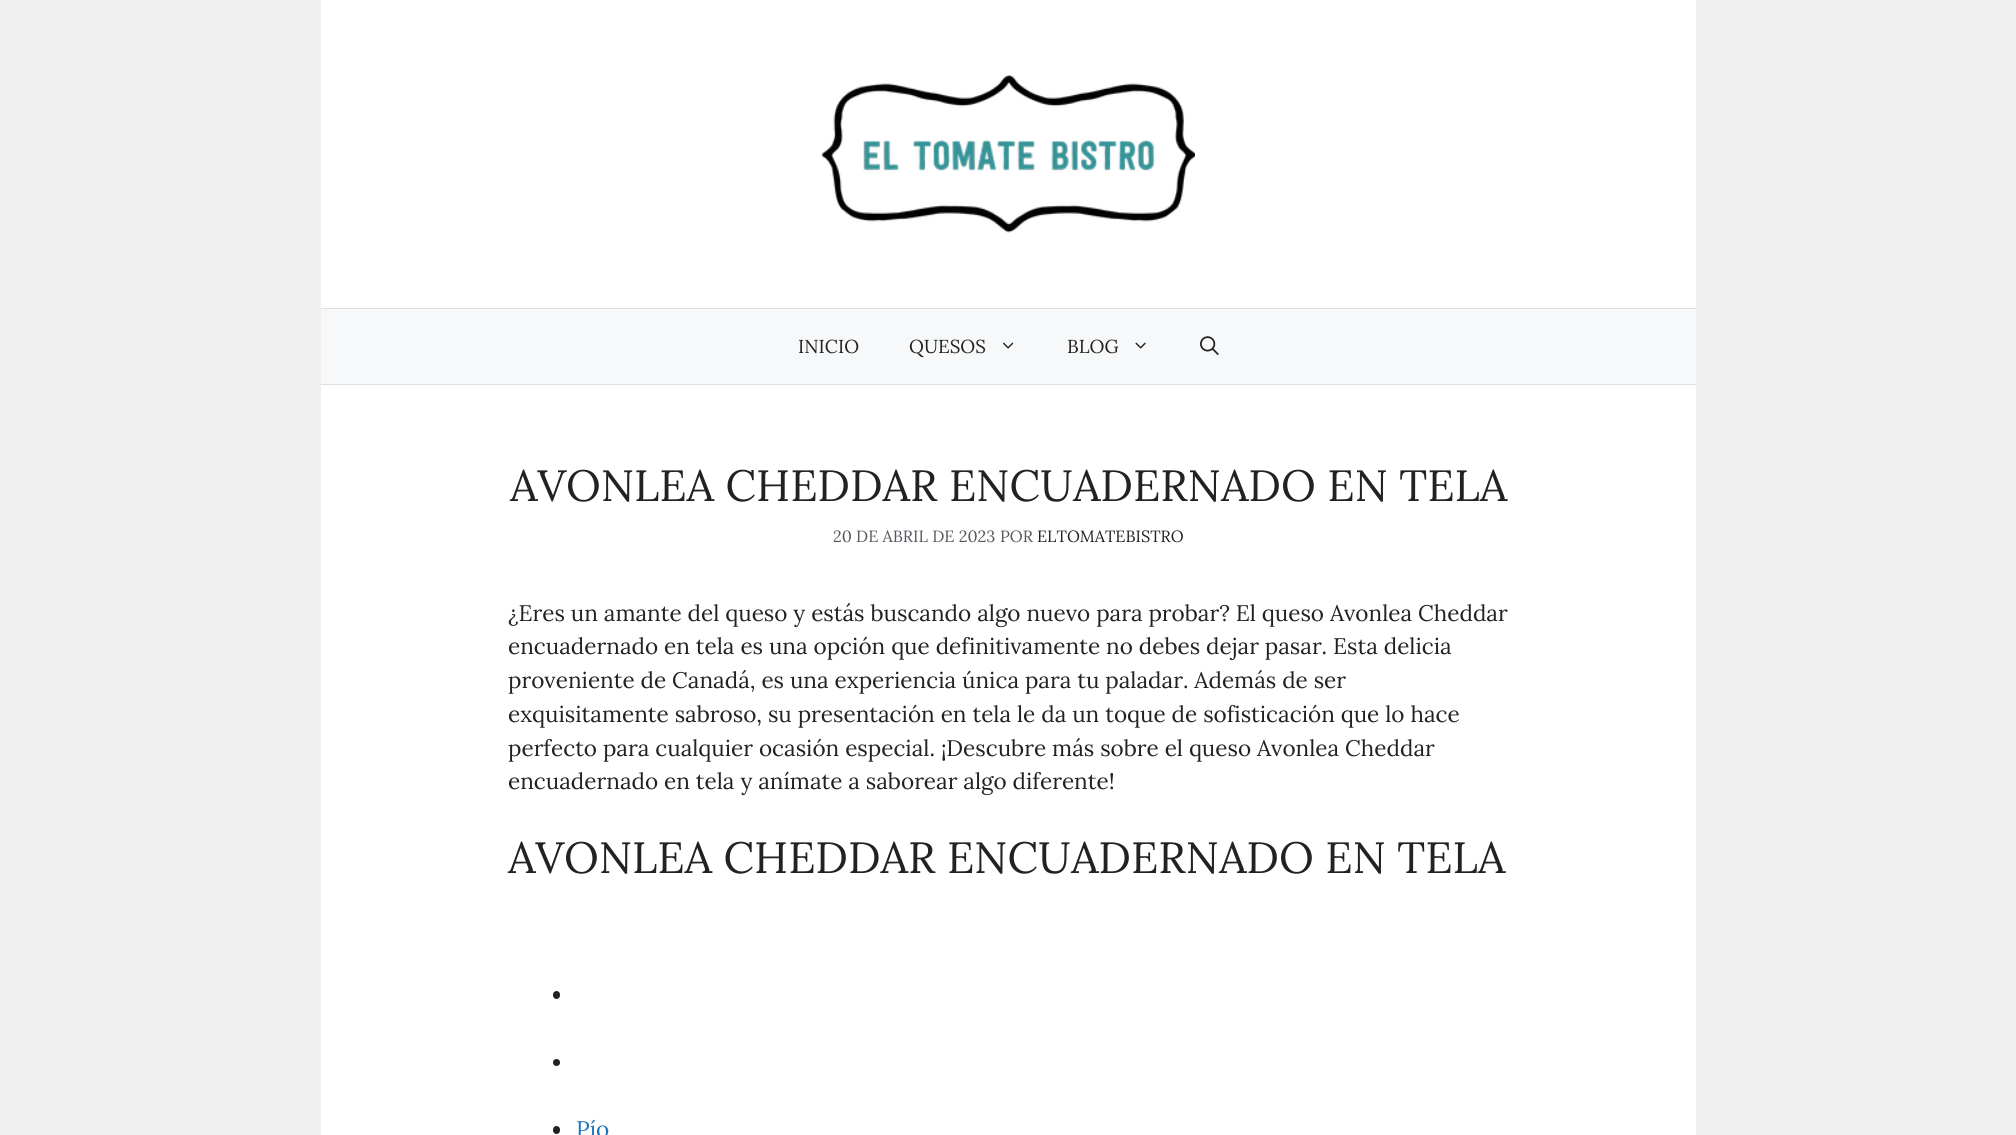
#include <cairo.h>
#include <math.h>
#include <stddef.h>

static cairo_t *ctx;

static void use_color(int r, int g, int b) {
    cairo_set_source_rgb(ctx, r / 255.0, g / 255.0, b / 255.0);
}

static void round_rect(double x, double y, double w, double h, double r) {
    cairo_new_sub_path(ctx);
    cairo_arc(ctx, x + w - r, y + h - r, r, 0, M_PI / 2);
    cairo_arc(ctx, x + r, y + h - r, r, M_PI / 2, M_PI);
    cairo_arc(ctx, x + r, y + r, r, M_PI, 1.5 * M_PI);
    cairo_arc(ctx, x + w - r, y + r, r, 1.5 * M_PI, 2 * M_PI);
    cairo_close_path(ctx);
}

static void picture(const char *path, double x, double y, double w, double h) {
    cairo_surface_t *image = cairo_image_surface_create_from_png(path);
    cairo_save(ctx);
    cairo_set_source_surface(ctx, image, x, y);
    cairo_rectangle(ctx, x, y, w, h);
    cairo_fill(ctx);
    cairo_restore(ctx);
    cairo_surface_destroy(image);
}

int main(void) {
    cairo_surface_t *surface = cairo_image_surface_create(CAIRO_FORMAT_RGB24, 2016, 1135);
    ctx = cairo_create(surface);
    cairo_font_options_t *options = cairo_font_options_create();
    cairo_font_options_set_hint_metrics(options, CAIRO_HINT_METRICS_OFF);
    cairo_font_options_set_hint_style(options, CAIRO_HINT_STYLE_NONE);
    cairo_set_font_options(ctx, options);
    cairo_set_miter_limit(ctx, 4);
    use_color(240, 240, 240);
    cairo_paint(ctx);
    use_color(255, 255, 255);
    cairo_rectangle(ctx, 321, 0, 1375, 308);
    cairo_fill(ctx);
    picture("img1.png", 821, 75, 374, 158);
    use_color(247, 248, 249);
    cairo_rectangle(ctx, 321, 309, 1375, 75);
    cairo_fill(ctx);
    use_color(222, 223, 224);
    cairo_rectangle(ctx, 321, 308, 1375, 1);
    cairo_fill(ctx);
    cairo_rectangle(ctx, 321, 384, 1375, 1);
    cairo_fill(ctx);
    cairo_select_font_face(ctx, "Lora", CAIRO_FONT_SLANT_NORMAL, CAIRO_FONT_WEIGHT_NORMAL);
    cairo_set_font_size(ctx, 18.75);
    use_color(34, 34, 34);
    cairo_move_to(ctx, 798, 353);
    cairo_show_text(ctx, "INICIO");
    cairo_move_to(ctx, 909, 353);
    cairo_show_text(ctx, "QUESOS");
    picture("img2.png", 1003, 342, 11, 7);
    cairo_move_to(ctx, 1067, 353);
    cairo_show_text(ctx, "BLOG");
    picture("img3.png", 1135, 342, 11, 7);
    picture("img4.png", 1200, 336, 19, 19);
    use_color(255, 255, 255);
    cairo_rectangle(ctx, 321, 385, 1375, 750);
    cairo_fill(ctx);
    cairo_set_font_size(ctx, 43.75);
    use_color(34, 34, 34);
    cairo_move_to(ctx, 510, 501);
    cairo_show_text(ctx, "AVONLEA CHEDDAR ENCUADERNADO EN TELA");
    cairo_set_font_size(ctx, 16.25);
    use_color(87, 87, 96);
    cairo_move_to(ctx, 833, 542);
    cairo_show_text(ctx, "20 DE ABRIL DE 2023");
    cairo_move_to(ctx, 1000, 542);
    cairo_show_text(ctx, "POR");
    use_color(34, 34, 34);
    cairo_move_to(ctx, 1037, 542);
    cairo_show_text(ctx, "ELTOMATEBISTRO");
    cairo_set_font_size(ctx, 22.5);
    cairo_move_to(ctx, 508, 621);
    cairo_show_text(ctx, "¿Eres un amante del queso y estás buscando algo nuevo para probar? El queso Avonlea Cheddar");
    cairo_move_to(ctx, 508, 654);
    cairo_show_text(ctx, "encuadernado en tela es una opción que definitivamente no debes dejar pasar. Esta delicia");
    cairo_move_to(ctx, 508, 688);
    cairo_show_text(ctx, "proveniente de Canadá, es una experiencia única para tu paladar. Además de ser");
    cairo_move_to(ctx, 508, 722);
    cairo_show_text(ctx, "exquisitamente sabroso, su presentación en tela le da un toque de sofisticación que lo hace");
    cairo_move_to(ctx, 508, 756);
    cairo_show_text(ctx, "perfecto para cualquier ocasión especial. ¡Descubre más sobre el queso Avonlea Cheddar");
    cairo_move_to(ctx, 508, 789);
    cairo_show_text(ctx, "encuadernado en tela y anímate a saborear algo diferente!");
    cairo_set_font_size(ctx, 43.75);
    cairo_move_to(ctx, 508, 873);
    cairo_show_text(ctx, "AVONLEA CHEDDAR ENCUADERNADO EN TELA");
    round_rect(553, 991, 7, 8, 3.5);
    cairo_fill(ctx);
    cairo_arc(ctx, 556.5, 1062.5, 3.5, 0, 2 * M_PI);
    cairo_fill(ctx);
    round_rect(553, 1126, 7, 8, 3.5);
    cairo_fill(ctx);
    cairo_set_font_size(ctx, 22.5);
    use_color(30, 115, 190);
    cairo_move_to(ctx, 576, 1137);
    cairo_show_text(ctx, "Pío");
    cairo_surface_write_to_png(surface, "result.png");
    cairo_font_options_destroy(options);
    cairo_destroy(ctx);
    cairo_surface_destroy(surface);
    return 0;
}
